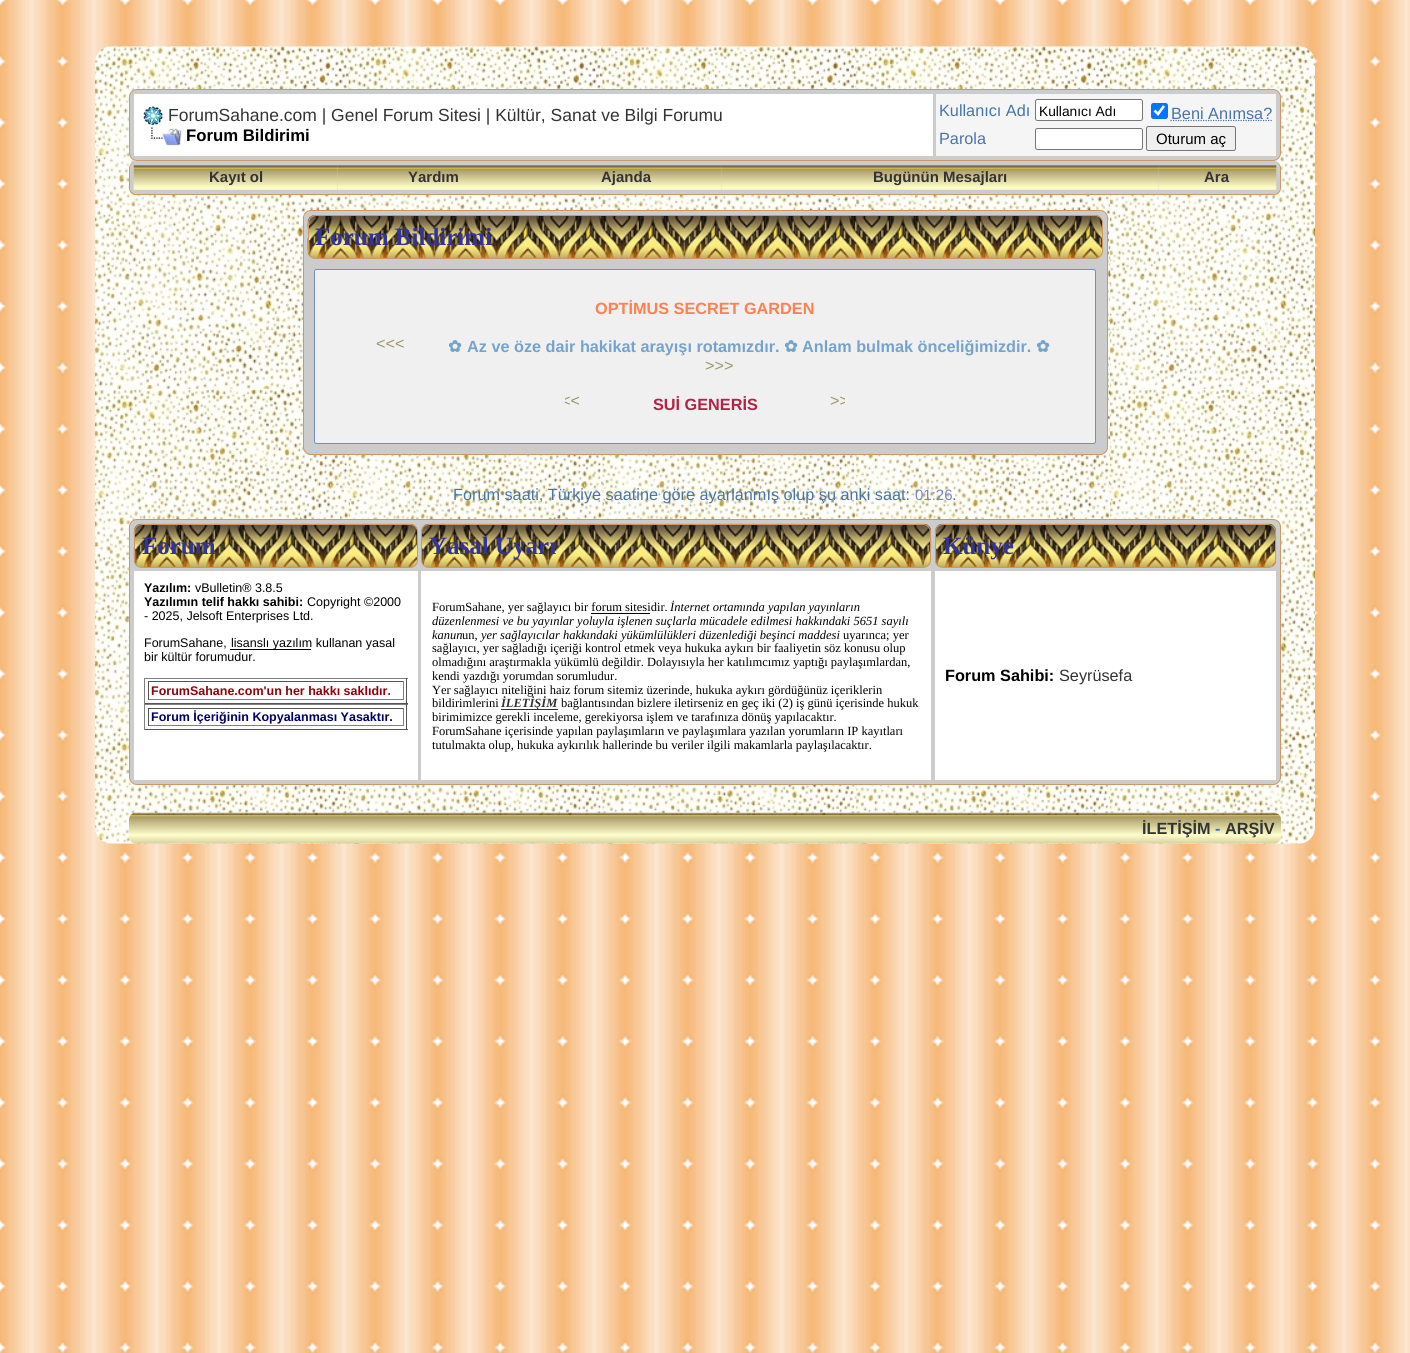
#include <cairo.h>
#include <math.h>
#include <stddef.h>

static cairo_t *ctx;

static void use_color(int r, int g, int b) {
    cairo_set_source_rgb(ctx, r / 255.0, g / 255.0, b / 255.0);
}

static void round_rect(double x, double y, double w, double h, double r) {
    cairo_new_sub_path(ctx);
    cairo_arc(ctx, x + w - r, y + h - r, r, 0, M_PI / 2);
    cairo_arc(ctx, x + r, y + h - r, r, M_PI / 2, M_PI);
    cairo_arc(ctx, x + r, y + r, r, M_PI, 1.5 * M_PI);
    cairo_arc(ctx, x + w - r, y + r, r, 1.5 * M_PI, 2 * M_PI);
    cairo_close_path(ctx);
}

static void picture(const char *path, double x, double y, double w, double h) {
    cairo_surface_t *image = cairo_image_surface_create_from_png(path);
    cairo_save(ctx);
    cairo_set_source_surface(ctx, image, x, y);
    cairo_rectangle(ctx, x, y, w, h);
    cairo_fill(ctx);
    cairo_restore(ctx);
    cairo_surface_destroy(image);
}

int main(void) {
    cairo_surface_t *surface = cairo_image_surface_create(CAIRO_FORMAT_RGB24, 1410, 1353);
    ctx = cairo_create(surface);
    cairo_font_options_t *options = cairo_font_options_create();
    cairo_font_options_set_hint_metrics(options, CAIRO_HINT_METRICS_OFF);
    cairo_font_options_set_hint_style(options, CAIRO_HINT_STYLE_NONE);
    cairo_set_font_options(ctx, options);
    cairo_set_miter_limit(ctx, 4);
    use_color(255, 255, 255);
    cairo_paint(ctx);
    picture("img1.png", 0, 0, 1410, 1353);
    picture("img2.png", 95, 46, 1220, 798);
    use_color(204, 204, 204);
    round_rect(129.5, 89.5, 1151, 71, 7.5);
    cairo_fill_preserve(ctx);
    use_color(204, 153, 102);
    cairo_set_line_width(ctx, 1);
    cairo_stroke(ctx);
    use_color(255, 255, 255);
    cairo_rectangle(ctx, 134, 94, 799, 62);
    cairo_fill(ctx);
    picture("img3.png", 143, 106, 20, 19);
    cairo_select_font_face(ctx, "Liberation Sans", CAIRO_FONT_SLANT_NORMAL, CAIRO_FONT_WEIGHT_NORMAL);
    cairo_set_font_size(ctx, 17.5);
    use_color(51, 51, 51);
    cairo_move_to(ctx, 168, 121);
    cairo_show_text(ctx, "ForumSahane.com | Genel Forum Sitesi | Kültür, Sanat ve Bilgi Forumu");
    picture("img4.png", 151, 127, 31, 19);
    cairo_select_font_face(ctx, "Liberation Sans", CAIRO_FONT_SLANT_NORMAL, CAIRO_FONT_WEIGHT_BOLD);
    cairo_set_font_size(ctx, 16.75);
    use_color(0, 0, 0);
    cairo_move_to(ctx, 186, 141);
    cairo_show_text(ctx, "Forum Bildirimi");
    use_color(245, 245, 245);
    cairo_rectangle(ctx, 936, 94, 340, 62);
    cairo_fill(ctx);
    cairo_select_font_face(ctx, "Liberation Sans", CAIRO_FONT_SLANT_NORMAL, CAIRO_FONT_WEIGHT_NORMAL);
    cairo_set_font_size(ctx, 16.25);
    use_color(72, 116, 172);
    cairo_move_to(ctx, 939, 116);
    cairo_show_text(ctx, "Kullanıcı Adı");
    use_color(255, 255, 255);
    round_rect(1035.5, 99.5, 107, 21, 2);
    cairo_fill_preserve(ctx);
    use_color(118, 118, 118);
    cairo_stroke(ctx);
    cairo_set_font_size(ctx, 13.75);
    use_color(0, 0, 0);
    cairo_move_to(ctx, 1039, 116);
    cairo_show_text(ctx, "Kullanıcı Adı");
    use_color(0, 117, 255);
    round_rect(1151, 103, 17, 16, 2.5);
    cairo_fill(ctx);
    cairo_new_path(ctx);
    cairo_move_to(ctx, 1154.5, 110.5);
    cairo_line_to(ctx, 1158, 114);
    cairo_line_to(ctx, 1164, 106);
    use_color(255, 255, 255);
    cairo_set_line_width(ctx, 2.6);
    cairo_stroke(ctx);
    cairo_new_path(ctx);
    cairo_move_to(ctx, 1170.5, 120.5);
    cairo_line_to(ctx, 1272, 120.5);
    use_color(72, 116, 172);
    cairo_set_line_width(ctx, 1.2);
    cairo_set_dash(ctx, (double[]){1.25, 1.25}, 2, 0);
    cairo_stroke(ctx);
    cairo_set_font_size(ctx, 16.25);
    cairo_move_to(ctx, 1171, 119);
    cairo_show_text(ctx, "Beni Anımsa?");
    cairo_move_to(ctx, 939, 144);
    cairo_show_text(ctx, "Parola");
    use_color(255, 255, 255);
    round_rect(1035.5, 128.5, 107, 21, 2);
    cairo_fill_preserve(ctx);
    use_color(118, 118, 118);
    cairo_set_line_width(ctx, 1);
    cairo_set_dash(ctx, NULL, 0, 0);
    cairo_stroke(ctx);
    use_color(239, 239, 239);
    round_rect(1146.5, 126.5, 89, 24, 2);
    cairo_fill_preserve(ctx);
    use_color(118, 118, 118);
    cairo_stroke(ctx);
    cairo_set_font_size(ctx, 15);
    use_color(0, 0, 0);
    cairo_move_to(ctx, 1156, 144);
    cairo_show_text(ctx, "Oturum aç");
    use_color(204, 204, 204);
    cairo_new_path(ctx);
    cairo_move_to(ctx, 136, 161);
    cairo_line_to(ctx, 1274, 161);
    cairo_curve_to(ctx, 1277, 161, 1280, 165, 1280, 169);
    cairo_line_to(ctx, 1280, 188);
    cairo_curve_to(ctx, 1280, 191, 1277, 194, 1274, 194);
    cairo_line_to(ctx, 136, 194);
    cairo_curve_to(ctx, 133, 194, 130, 191, 130, 188);
    cairo_line_to(ctx, 130, 169);
    cairo_curve_to(ctx, 130, 165, 133, 161, 136, 161);
    cairo_close_path(ctx);
    cairo_fill(ctx);
    use_color(204, 153, 102);
    cairo_set_fill_rule(ctx, CAIRO_FILL_RULE_EVEN_ODD);
    cairo_new_path(ctx);
    cairo_move_to(ctx, 136, 161);
    cairo_line_to(ctx, 1274, 161);
    cairo_curve_to(ctx, 1278, 161, 1281, 165, 1281, 169);
    cairo_line_to(ctx, 1281, 188);
    cairo_curve_to(ctx, 1281, 192, 1278, 195, 1274, 195);
    cairo_line_to(ctx, 136, 195);
    cairo_curve_to(ctx, 132, 195, 129, 192, 129, 188);
    cairo_line_to(ctx, 129, 169);
    cairo_curve_to(ctx, 129, 165, 132, 161, 136, 161);
    cairo_close_path(ctx);
    cairo_move_to(ctx, 136, 161);
    cairo_line_to(ctx, 1274, 161);
    cairo_curve_to(ctx, 1277, 161, 1280, 165, 1280, 169);
    cairo_line_to(ctx, 1280, 188);
    cairo_curve_to(ctx, 1280, 191, 1277, 194, 1274, 194);
    cairo_line_to(ctx, 136, 194);
    cairo_curve_to(ctx, 133, 194, 130, 191, 130, 188);
    cairo_line_to(ctx, 130, 169);
    cairo_curve_to(ctx, 130, 165, 133, 161, 136, 161);
    cairo_close_path(ctx);
    cairo_fill(ctx);
    picture("img5.png", 133, 165, 205, 25);
    cairo_select_font_face(ctx, "Liberation Sans", CAIRO_FONT_SLANT_NORMAL, CAIRO_FONT_WEIGHT_BOLD);
    use_color(51, 51, 51);
    cairo_move_to(ctx, 209, 182);
    cairo_show_text(ctx, "Kayıt ol");
    picture("img6.png", 337, 165, 193, 25);
    cairo_move_to(ctx, 408, 182);
    cairo_show_text(ctx, "Yardım");
    picture("img7.png", 530, 165, 192, 25);
    cairo_move_to(ctx, 601, 182);
    cairo_show_text(ctx, "Ajanda");
    picture("img8.png", 721, 165, 438, 25);
    cairo_move_to(ctx, 873, 182);
    cairo_show_text(ctx, "Bugünün Mesajları");
    picture("img9.png", 1158, 165, 119, 25);
    cairo_move_to(ctx, 1204, 182);
    cairo_show_text(ctx, "Ara");
    use_color(204, 204, 204);
    round_rect(303.5, 210.5, 804, 244, 7.5);
    cairo_fill_preserve(ctx);
    use_color(204, 153, 102);
    cairo_stroke(ctx);
    picture("img10.png", 307, 215, 796, 44);
    round_rect(308.5, 215.5, 794, 43, 7.5);
    cairo_stroke(ctx);
    cairo_select_font_face(ctx, "Liberation Serif", CAIRO_FONT_SLANT_NORMAL, CAIRO_FONT_WEIGHT_BOLD);
    cairo_set_font_size(ctx, 25);
    use_color(51, 51, 153);
    cairo_move_to(ctx, 315, 245);
    cairo_show_text(ctx, "Forum Bildirimi");
    use_color(240, 240, 240);
    round_rect(314.5, 269.5, 781, 174, 2);
    cairo_fill_preserve(ctx);
    use_color(115, 143, 191);
    cairo_stroke(ctx);
    cairo_select_font_face(ctx, "Liberation Sans", CAIRO_FONT_SLANT_NORMAL, CAIRO_FONT_WEIGHT_BOLD);
    cairo_set_font_size(ctx, 16.25);
    use_color(255, 127, 80);
    cairo_move_to(ctx, 595, 314);
    cairo_show_text(ctx, "OPTİMUS SECRET GARDEN");
    cairo_select_font_face(ctx, "Liberation Sans", CAIRO_FONT_SLANT_NORMAL, CAIRO_FONT_WEIGHT_NORMAL);
    use_color(153, 153, 102);
    cairo_move_to(ctx, 376, 349);
    cairo_show_text(ctx, "<<<");
    cairo_select_font_face(ctx, "DejaVu Sans", CAIRO_FONT_SLANT_NORMAL, CAIRO_FONT_WEIGHT_BOLD);
    use_color(117, 163, 205);
    cairo_move_to(ctx, 448, 352);
    cairo_show_text(ctx, "✿");
    cairo_select_font_face(ctx, "Liberation Sans", CAIRO_FONT_SLANT_NORMAL, CAIRO_FONT_WEIGHT_BOLD);
    cairo_move_to(ctx, 467, 352);
    cairo_show_text(ctx, "Az ve öze dair hakikat arayışı rotamızdır.");
    cairo_select_font_face(ctx, "DejaVu Sans", CAIRO_FONT_SLANT_NORMAL, CAIRO_FONT_WEIGHT_BOLD);
    cairo_move_to(ctx, 784, 352);
    cairo_show_text(ctx, "✿");
    cairo_select_font_face(ctx, "Liberation Sans", CAIRO_FONT_SLANT_NORMAL, CAIRO_FONT_WEIGHT_BOLD);
    cairo_move_to(ctx, 802, 352);
    cairo_show_text(ctx, "Anlam bulmak önceliğimizdir.");
    cairo_select_font_face(ctx, "DejaVu Sans", CAIRO_FONT_SLANT_NORMAL, CAIRO_FONT_WEIGHT_BOLD);
    cairo_move_to(ctx, 1036, 352);
    cairo_show_text(ctx, "✿");
    cairo_select_font_face(ctx, "Liberation Sans", CAIRO_FONT_SLANT_NORMAL, CAIRO_FONT_WEIGHT_NORMAL);
    use_color(153, 153, 102);
    cairo_move_to(ctx, 705, 371);
    cairo_show_text(ctx, ">>>");
    cairo_save(ctx);
    cairo_set_fill_rule(ctx, CAIRO_FILL_RULE_WINDING);
    cairo_rectangle(ctx, 565, 391, 88, 19);
    cairo_clip(ctx);
    cairo_move_to(ctx, 561, 406);
    cairo_show_text(ctx, "<<");
    cairo_restore(ctx);
    cairo_select_font_face(ctx, "Liberation Sans", CAIRO_FONT_SLANT_NORMAL, CAIRO_FONT_WEIGHT_BOLD);
    use_color(178, 35, 68);
    cairo_move_to(ctx, 653, 410);
    cairo_show_text(ctx, "SUİ GENERİS");
    cairo_save(ctx);
    cairo_set_fill_rule(ctx, CAIRO_FILL_RULE_WINDING);
    cairo_rectangle(ctx, 758, 391, 87, 19);
    cairo_clip(ctx);
    cairo_select_font_face(ctx, "Liberation Sans", CAIRO_FONT_SLANT_NORMAL, CAIRO_FONT_WEIGHT_NORMAL);
    use_color(153, 153, 102);
    cairo_move_to(ctx, 830, 406);
    cairo_show_text(ctx, ">>");
    cairo_restore(ctx);
    cairo_select_font_face(ctx, "Liberation Sans", CAIRO_FONT_SLANT_NORMAL, CAIRO_FONT_WEIGHT_NORMAL);
    use_color(72, 116, 172);
    cairo_move_to(ctx, 453, 500);
    cairo_show_text(ctx, "Forum saati, Türkiye saatine göre ayarlanmış olup şu anki saat:");
    cairo_set_font_size(ctx, 15);
    use_color(121, 134, 203);
    cairo_move_to(ctx, 915, 500);
    cairo_show_text(ctx, "01:26");
    cairo_set_font_size(ctx, 16.25);
    use_color(72, 116, 172);
    cairo_move_to(ctx, 952, 500);
    cairo_show_text(ctx, ".");
    use_color(204, 204, 204);
    round_rect(129.5, 519.5, 1151, 265, 7.5);
    cairo_fill_preserve(ctx);
    use_color(204, 153, 102);
    cairo_stroke(ctx);
    picture("img11.png", 133, 523, 285, 45);
    round_rect(134.5, 524.5, 283, 43, 7.5);
    cairo_stroke(ctx);
    cairo_select_font_face(ctx, "Liberation Serif", CAIRO_FONT_SLANT_NORMAL, CAIRO_FONT_WEIGHT_BOLD);
    cairo_set_font_size(ctx, 25);
    use_color(51, 51, 153);
    cairo_move_to(ctx, 142, 554);
    cairo_show_text(ctx, "Forum");
    picture("img12.png", 421, 523, 511, 45);
    round_rect(421.5, 524.5, 509, 43, 7.5);
    use_color(204, 153, 102);
    cairo_stroke(ctx);
    use_color(51, 51, 153);
    cairo_move_to(ctx, 429, 554);
    cairo_show_text(ctx, "Yasal Uyarı");
    picture("img13.png", 935, 523, 342, 45);
    round_rect(935.5, 524.5, 340, 43, 7.5);
    use_color(204, 153, 102);
    cairo_stroke(ctx);
    use_color(51, 51, 153);
    cairo_move_to(ctx, 943, 554);
    cairo_show_text(ctx, "Künye");
    use_color(255, 255, 255);
    cairo_rectangle(ctx, 134, 571, 284, 209);
    cairo_fill(ctx);
    cairo_select_font_face(ctx, "Liberation Sans", CAIRO_FONT_SLANT_NORMAL, CAIRO_FONT_WEIGHT_BOLD);
    cairo_set_font_size(ctx, 12.5);
    use_color(0, 0, 0);
    cairo_move_to(ctx, 144, 592);
    cairo_show_text(ctx, "Yazılım:");
    cairo_select_font_face(ctx, "Liberation Sans", CAIRO_FONT_SLANT_NORMAL, CAIRO_FONT_WEIGHT_NORMAL);
    cairo_move_to(ctx, 195, 592);
    cairo_show_text(ctx, "vBulletin® 3.8.5");
    cairo_select_font_face(ctx, "Liberation Sans", CAIRO_FONT_SLANT_NORMAL, CAIRO_FONT_WEIGHT_BOLD);
    cairo_move_to(ctx, 144, 606);
    cairo_show_text(ctx, "Yazılımın telif hakkı sahibi:");
    cairo_select_font_face(ctx, "Liberation Sans", CAIRO_FONT_SLANT_NORMAL, CAIRO_FONT_WEIGHT_NORMAL);
    cairo_move_to(ctx, 307, 606);
    cairo_show_text(ctx, "Copyright ©2000");
    cairo_move_to(ctx, 144, 620);
    cairo_show_text(ctx, "- 2025, Jelsoft Enterprises Ltd.");
    cairo_move_to(ctx, 144, 647);
    cairo_show_text(ctx, "ForumSahane,");
    cairo_rectangle(ctx, 230, 649, 81, 1);
    cairo_fill(ctx);
    cairo_move_to(ctx, 231, 647);
    cairo_show_text(ctx, "lisanslı yazılım kullanan yasal");
    cairo_move_to(ctx, 144, 661);
    cairo_show_text(ctx, "bir kültür forumudur.");
    use_color(128, 128, 128);
    cairo_rectangle(ctx, 144, 678, 264, 1);
    cairo_fill(ctx);
    use_color(85, 85, 85);
    cairo_rectangle(ctx, 406, 678, 1, 26);
    cairo_fill(ctx);
    cairo_rectangle(ctx, 144, 703, 264, 1);
    cairo_fill(ctx);
    use_color(128, 128, 128);
    cairo_rectangle(ctx, 144, 678, 1, 26);
    cairo_fill(ctx);
    use_color(85, 85, 85);
    cairo_rectangle(ctx, 148, 681, 256, 1);
    cairo_fill(ctx);
    use_color(128, 128, 128);
    cairo_rectangle(ctx, 403, 681, 1, 19);
    cairo_fill(ctx);
    cairo_rectangle(ctx, 148, 699, 256, 1);
    cairo_fill(ctx);
    use_color(85, 85, 85);
    cairo_rectangle(ctx, 148, 681, 1, 19);
    cairo_fill(ctx);
    cairo_select_font_face(ctx, "Liberation Sans", CAIRO_FONT_SLANT_NORMAL, CAIRO_FONT_WEIGHT_BOLD);
    use_color(146, 0, 10);
    cairo_move_to(ctx, 151, 695);
    cairo_show_text(ctx, "ForumSahane.com'un her hakkı saklıdır.");
    use_color(128, 128, 128);
    cairo_rectangle(ctx, 144, 704, 264, 1);
    cairo_fill(ctx);
    use_color(85, 85, 85);
    cairo_rectangle(ctx, 406, 704, 1, 26);
    cairo_fill(ctx);
    cairo_rectangle(ctx, 144, 729, 264, 1);
    cairo_fill(ctx);
    use_color(128, 128, 128);
    cairo_rectangle(ctx, 144, 704, 1, 26);
    cairo_fill(ctx);
    use_color(85, 85, 85);
    cairo_rectangle(ctx, 148, 708, 256, 1);
    cairo_fill(ctx);
    use_color(128, 128, 128);
    cairo_rectangle(ctx, 403, 708, 1, 18);
    cairo_fill(ctx);
    cairo_rectangle(ctx, 148, 725, 256, 1);
    cairo_fill(ctx);
    use_color(85, 85, 85);
    cairo_rectangle(ctx, 148, 708, 1, 18);
    cairo_fill(ctx);
    use_color(0, 0, 102);
    cairo_move_to(ctx, 151, 721);
    cairo_show_text(ctx, "Forum İçeriğinin Kopyalanması Yasaktır.");
    use_color(255, 255, 255);
    cairo_rectangle(ctx, 421, 571, 510, 209);
    cairo_fill(ctx);
    cairo_select_font_face(ctx, "Liberation Serif", CAIRO_FONT_SLANT_NORMAL, CAIRO_FONT_WEIGHT_NORMAL);
    use_color(0, 0, 0);
    cairo_move_to(ctx, 432, 611);
    cairo_show_text(ctx, "ForumSahane, yer sağlayıcı bir forum sitesidir.");
    cairo_rectangle(ctx, 591, 613, 59, 1);
    cairo_fill(ctx);
    cairo_select_font_face(ctx, "Liberation Serif", CAIRO_FONT_SLANT_ITALIC, CAIRO_FONT_WEIGHT_NORMAL);
    cairo_move_to(ctx, 670, 611);
    cairo_show_text(ctx, "İnternet ortamında yapılan yayınların");
    cairo_move_to(ctx, 432, 625);
    cairo_show_text(ctx, "düzenlenmesi ve bu yayınlar yoluyla işlenen suçlarla mücadele edilmesi hakkındaki 5651 sayılı");
    cairo_move_to(ctx, 432, 639);
    cairo_show_text(ctx, "kanun");
    cairo_select_font_face(ctx, "Liberation Serif", CAIRO_FONT_SLANT_NORMAL, CAIRO_FONT_WEIGHT_NORMAL);
    cairo_move_to(ctx, 462, 639);
    cairo_show_text(ctx, "un,");
    cairo_select_font_face(ctx, "Liberation Serif", CAIRO_FONT_SLANT_ITALIC, CAIRO_FONT_WEIGHT_NORMAL);
    cairo_move_to(ctx, 481, 639);
    cairo_show_text(ctx, "yer sağlayıcılar hakkındaki yükümlülükleri düzenlediği beşinci maddesi");
    cairo_select_font_face(ctx, "Liberation Serif", CAIRO_FONT_SLANT_NORMAL, CAIRO_FONT_WEIGHT_NORMAL);
    cairo_move_to(ctx, 843, 639);
    cairo_show_text(ctx, "uyarınca; yer");
    cairo_move_to(ctx, 432, 652);
    cairo_show_text(ctx, "sağlayıcı, yer sağladığı içeriği kontrol etmek veya hukuka aykırı bir faaliyetin söz konusu olup");
    cairo_move_to(ctx, 432, 666);
    cairo_show_text(ctx, "olmadığını araştırmakla yükümlü değildir. Dolayısıyla her katılımcımız yaptığı paylaşımlardan,");
    cairo_move_to(ctx, 432, 680);
    cairo_show_text(ctx, "kendi yazdığı yorumdan sorumludur.");
    cairo_move_to(ctx, 432, 694);
    cairo_show_text(ctx, "Yer sağlayıcı niteliğini haiz forum sitemiz üzerinde, hukuka aykırı gördüğünüz içeriklerin");
    cairo_move_to(ctx, 432, 707);
    cairo_show_text(ctx, "bildirimlerini");
    use_color(51, 51, 51);
    cairo_rectangle(ctx, 501, 709, 57, 1);
    cairo_fill(ctx);
    cairo_select_font_face(ctx, "Liberation Serif", CAIRO_FONT_SLANT_ITALIC, CAIRO_FONT_WEIGHT_BOLD);
    cairo_move_to(ctx, 501, 707);
    cairo_show_text(ctx, "İLETİŞİM");
    cairo_select_font_face(ctx, "Liberation Serif", CAIRO_FONT_SLANT_NORMAL, CAIRO_FONT_WEIGHT_NORMAL);
    use_color(0, 0, 0);
    cairo_move_to(ctx, 561, 707);
    cairo_show_text(ctx, "bağlantısından bizlere iletirseniz en geç iki (2) iş günü içerisinde hukuk");
    cairo_move_to(ctx, 432, 721);
    cairo_show_text(ctx, "birimimizce gerekli inceleme, gerekiyorsa işlem ve tarafınıza dönüş yapılacaktır.");
    cairo_move_to(ctx, 432, 735);
    cairo_show_text(ctx, "ForumSahane içerisinde yapılan paylaşımların ve paylaşımlara yazılan yorumların IP kayıtları");
    cairo_move_to(ctx, 432, 749);
    cairo_show_text(ctx, "tutulmakta olup, hukuka aykırılık hallerinde bu veriler ilgili makamlarla paylaşılacaktır.");
    use_color(255, 255, 255);
    cairo_rectangle(ctx, 935, 571, 341, 209);
    cairo_fill(ctx);
    cairo_select_font_face(ctx, "Liberation Sans", CAIRO_FONT_SLANT_NORMAL, CAIRO_FONT_WEIGHT_BOLD);
    cairo_set_font_size(ctx, 16.25);
    use_color(0, 0, 0);
    cairo_move_to(ctx, 945, 681);
    cairo_show_text(ctx, "Forum Sahibi:");
    cairo_select_font_face(ctx, "Liberation Sans", CAIRO_FONT_SLANT_NORMAL, CAIRO_FONT_WEIGHT_NORMAL);
    use_color(51, 51, 51);
    cairo_move_to(ctx, 1059, 681);
    cairo_show_text(ctx, "Seyrüsefa");
    picture("img14.png", 134, 812, 1142, 32);
    picture("img15.png", 128, 812, 1154, 32);
    cairo_select_font_face(ctx, "Liberation Sans", CAIRO_FONT_SLANT_NORMAL, CAIRO_FONT_WEIGHT_BOLD);
    cairo_move_to(ctx, 1142, 834);
    cairo_show_text(ctx, "İLETİŞİM");
    use_color(72, 116, 172);
    cairo_move_to(ctx, 1215, 834);
    cairo_show_text(ctx, "-");
    use_color(51, 51, 51);
    cairo_move_to(ctx, 1225, 834);
    cairo_show_text(ctx, "ARŞİV");
    cairo_surface_write_to_png(surface, "result.png");
    cairo_font_options_destroy(options);
    cairo_destroy(ctx);
    cairo_surface_destroy(surface);
    return 0;
}
